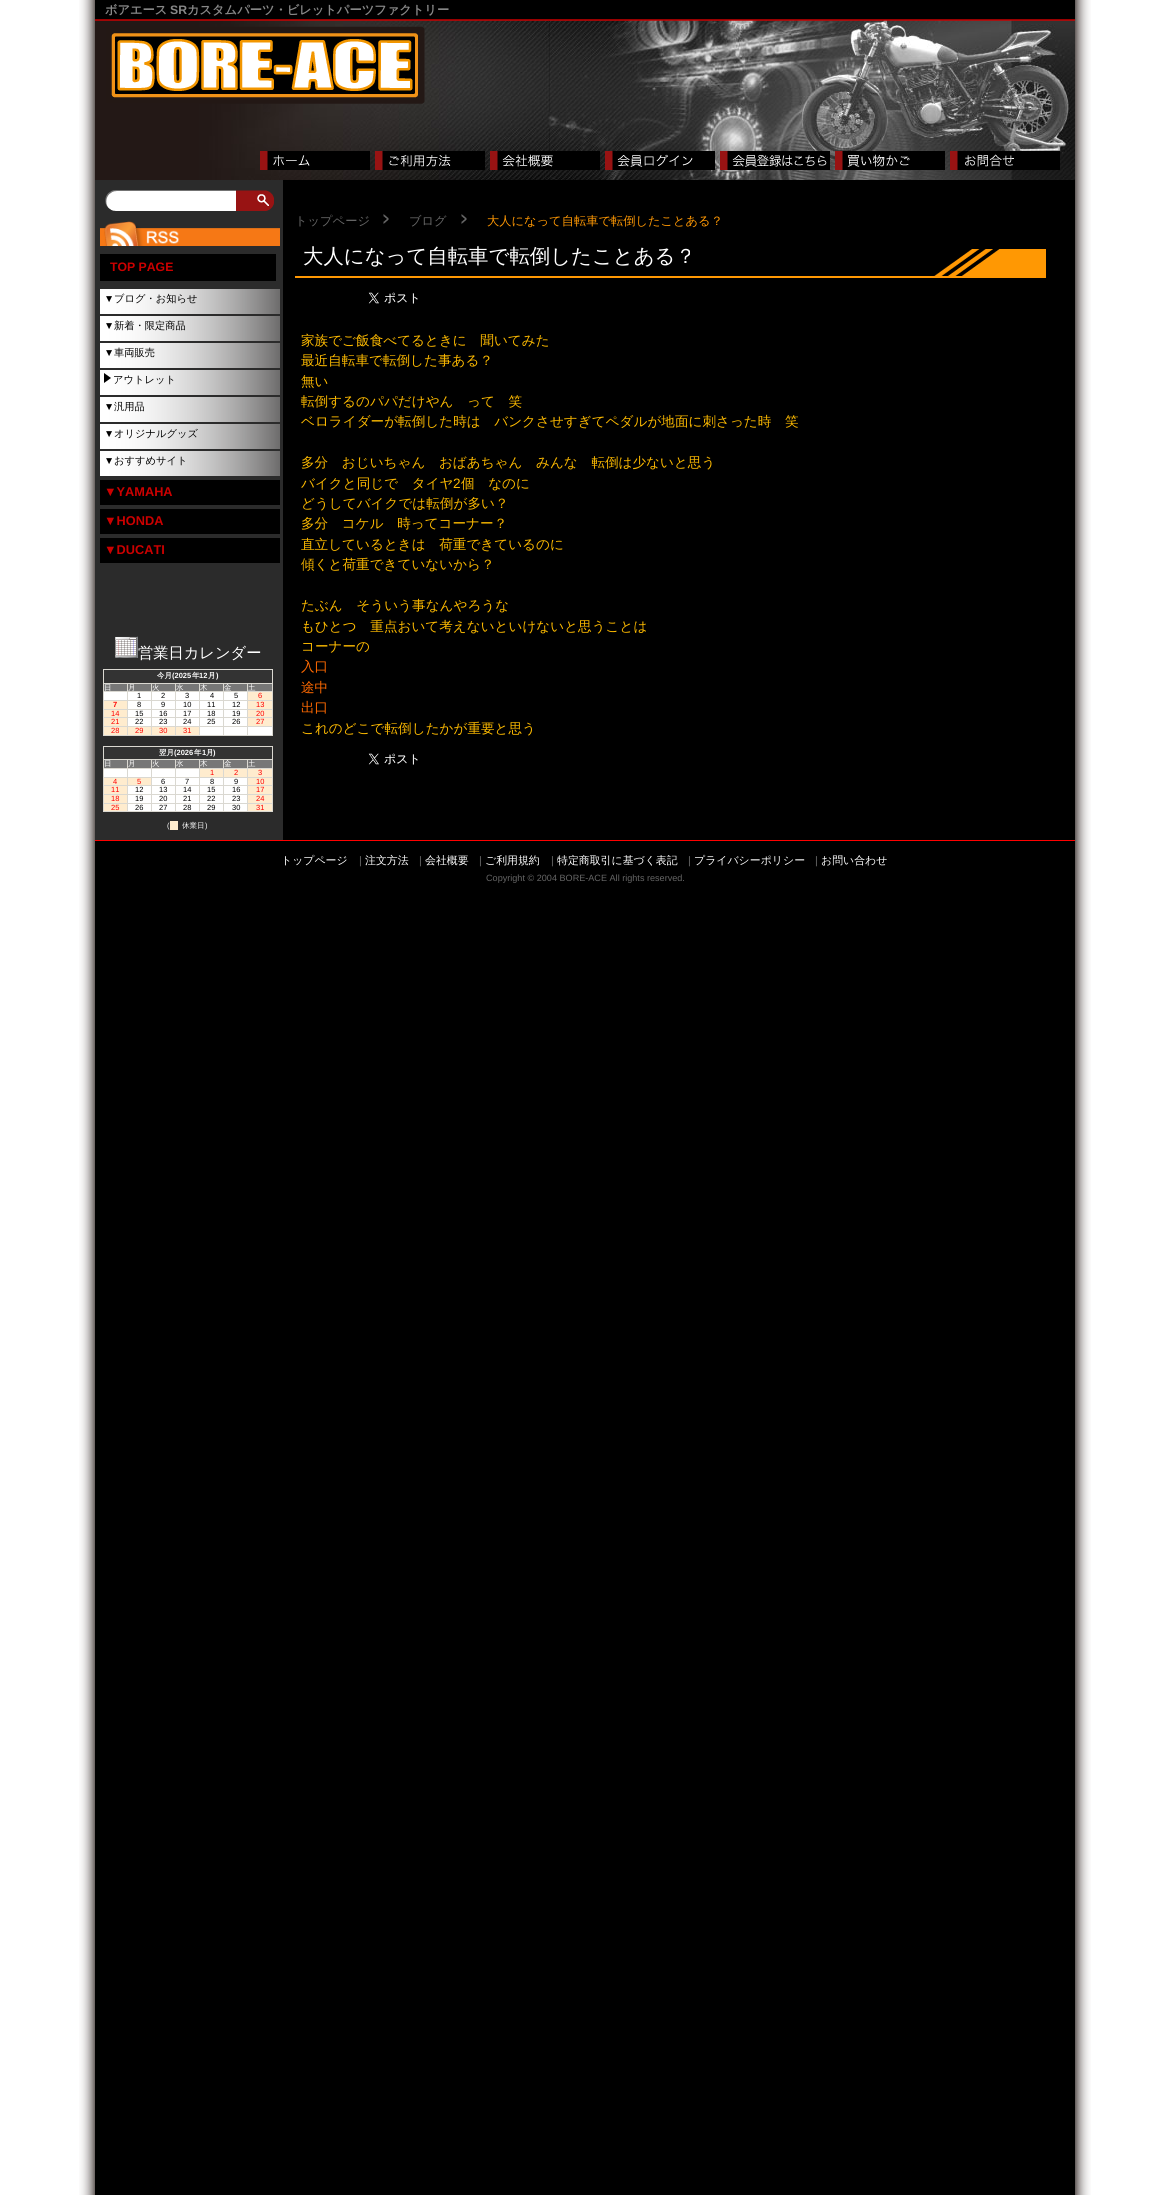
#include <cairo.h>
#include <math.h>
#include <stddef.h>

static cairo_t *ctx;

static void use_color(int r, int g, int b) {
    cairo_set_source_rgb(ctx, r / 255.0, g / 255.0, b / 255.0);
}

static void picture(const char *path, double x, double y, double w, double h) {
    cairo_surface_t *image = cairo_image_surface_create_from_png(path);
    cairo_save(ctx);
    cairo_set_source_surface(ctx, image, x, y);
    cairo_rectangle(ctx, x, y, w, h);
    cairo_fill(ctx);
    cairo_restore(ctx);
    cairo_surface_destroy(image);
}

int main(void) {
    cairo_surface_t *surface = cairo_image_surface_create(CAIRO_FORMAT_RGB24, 1169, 2195);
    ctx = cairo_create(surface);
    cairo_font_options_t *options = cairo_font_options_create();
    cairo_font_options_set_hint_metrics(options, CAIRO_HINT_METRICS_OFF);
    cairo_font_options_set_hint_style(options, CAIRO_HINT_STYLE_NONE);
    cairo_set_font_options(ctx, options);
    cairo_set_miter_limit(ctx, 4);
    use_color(255, 255, 255);
    cairo_paint(ctx);
    picture("img1.png", 79, 0, 1012, 2195);
    picture("img2.png", 95, 20, 980, 160);
    picture("img3.png", 95, 0, 980, 104);
    cairo_select_font_face(ctx, "WenQuanYi Zen Hei", CAIRO_FONT_SLANT_NORMAL, CAIRO_FONT_WEIGHT_BOLD);
    cairo_set_font_size(ctx, 12.25);
    use_color(136, 136, 136);
    cairo_move_to(ctx, 105, 14);
    cairo_show_text(ctx, "ボアエース");
    cairo_select_font_face(ctx, "Liberation Sans", CAIRO_FONT_SLANT_NORMAL, CAIRO_FONT_WEIGHT_BOLD);
    cairo_move_to(ctx, 170, 14);
    cairo_show_text(ctx, "SR");
    cairo_select_font_face(ctx, "WenQuanYi Zen Hei", CAIRO_FONT_SLANT_NORMAL, CAIRO_FONT_WEIGHT_BOLD);
    cairo_move_to(ctx, 187, 14);
    cairo_show_text(ctx, "カスタムパーツ・ビレットパーツファクトリー");
    picture("img4.png", 260, 151, 110, 19);
    picture("img5.png", 375, 151, 110, 19);
    picture("img6.png", 490, 151, 110, 19);
    picture("img7.png", 605, 151, 110, 19);
    picture("img8.png", 720, 151, 110, 19);
    picture("img9.png", 835, 151, 110, 19);
    picture("img10.png", 950, 151, 110, 19);
    use_color(43, 43, 43);
    cairo_rectangle(ctx, 95, 180, 188, 660);
    cairo_fill(ctx);
    picture("img11.png", 105, 190, 131, 21);
    picture("img12.png", 236, 190, 38, 21);
    picture("img13.png", 100, 221, 180, 25);
    use_color(0, 0, 0);
    cairo_rectangle(ctx, 100, 254, 176, 27);
    cairo_fill(ctx);
    cairo_select_font_face(ctx, "Liberation Sans", CAIRO_FONT_SLANT_NORMAL, CAIRO_FONT_WEIGHT_BOLD);
    use_color(204, 0, 0);
    cairo_move_to(ctx, 110, 271);
    cairo_show_text(ctx, "TOP PAGE");
    picture("img14.png", 100, 289, 180, 25);
    cairo_select_font_face(ctx, "Liberation Sans", CAIRO_FONT_SLANT_NORMAL, CAIRO_FONT_WEIGHT_NORMAL);
    cairo_set_font_size(ctx, 10.25);
    use_color(0, 0, 0);
    cairo_move_to(ctx, 104, 302);
    cairo_show_text(ctx, "▼");
    cairo_select_font_face(ctx, "WenQuanYi Zen Hei Medium", CAIRO_FONT_SLANT_NORMAL, CAIRO_FONT_WEIGHT_NORMAL);
    cairo_move_to(ctx, 114, 302);
    cairo_show_text(ctx, "ブログ・お知らせ");
    picture("img14.png", 100, 316, 180, 25);
    cairo_select_font_face(ctx, "Liberation Sans", CAIRO_FONT_SLANT_NORMAL, CAIRO_FONT_WEIGHT_NORMAL);
    cairo_move_to(ctx, 104, 329);
    cairo_show_text(ctx, "▼");
    cairo_select_font_face(ctx, "WenQuanYi Zen Hei Medium", CAIRO_FONT_SLANT_NORMAL, CAIRO_FONT_WEIGHT_NORMAL);
    cairo_move_to(ctx, 114, 329);
    cairo_show_text(ctx, "新着・限定商品");
    picture("img14.png", 100, 343, 180, 25);
    cairo_select_font_face(ctx, "Liberation Sans", CAIRO_FONT_SLANT_NORMAL, CAIRO_FONT_WEIGHT_NORMAL);
    cairo_move_to(ctx, 104, 356);
    cairo_show_text(ctx, "▼");
    cairo_select_font_face(ctx, "WenQuanYi Zen Hei Medium", CAIRO_FONT_SLANT_NORMAL, CAIRO_FONT_WEIGHT_NORMAL);
    cairo_move_to(ctx, 114, 356);
    cairo_show_text(ctx, "車両販売");
    picture("img14.png", 100, 370, 180, 25);
    cairo_new_path(ctx);
    cairo_move_to(ctx, 104, 383);
    cairo_line_to(ctx, 104, 373);
    cairo_line_to(ctx, 111, 378);
    cairo_close_path(ctx);
    cairo_fill(ctx);
    cairo_move_to(ctx, 113, 383);
    cairo_show_text(ctx, "アウトレット");
    picture("img14.png", 100, 397, 180, 25);
    cairo_select_font_face(ctx, "Liberation Sans", CAIRO_FONT_SLANT_NORMAL, CAIRO_FONT_WEIGHT_NORMAL);
    cairo_move_to(ctx, 104, 410);
    cairo_show_text(ctx, "▼");
    cairo_select_font_face(ctx, "WenQuanYi Zen Hei Medium", CAIRO_FONT_SLANT_NORMAL, CAIRO_FONT_WEIGHT_NORMAL);
    cairo_move_to(ctx, 114, 410);
    cairo_show_text(ctx, "汎用品");
    picture("img14.png", 100, 424, 180, 25);
    cairo_select_font_face(ctx, "Liberation Sans", CAIRO_FONT_SLANT_NORMAL, CAIRO_FONT_WEIGHT_NORMAL);
    cairo_move_to(ctx, 104, 437);
    cairo_show_text(ctx, "▼");
    cairo_select_font_face(ctx, "WenQuanYi Zen Hei Medium", CAIRO_FONT_SLANT_NORMAL, CAIRO_FONT_WEIGHT_NORMAL);
    cairo_move_to(ctx, 114, 437);
    cairo_show_text(ctx, "オリジナルグッズ");
    picture("img14.png", 100, 451, 180, 25);
    cairo_select_font_face(ctx, "Liberation Sans", CAIRO_FONT_SLANT_NORMAL, CAIRO_FONT_WEIGHT_NORMAL);
    cairo_move_to(ctx, 104, 464);
    cairo_show_text(ctx, "▼");
    cairo_select_font_face(ctx, "WenQuanYi Zen Hei Medium", CAIRO_FONT_SLANT_NORMAL, CAIRO_FONT_WEIGHT_NORMAL);
    cairo_move_to(ctx, 114, 464);
    cairo_show_text(ctx, "おすすめサイト");
    cairo_rectangle(ctx, 100, 480, 180, 25);
    cairo_fill(ctx);
    cairo_select_font_face(ctx, "Liberation Sans", CAIRO_FONT_SLANT_NORMAL, CAIRO_FONT_WEIGHT_BOLD);
    cairo_set_font_size(ctx, 12.75);
    use_color(204, 0, 0);
    cairo_move_to(ctx, 104, 496);
    cairo_show_text(ctx, "▼YAMAHA");
    use_color(0, 0, 0);
    cairo_rectangle(ctx, 100, 509, 180, 25);
    cairo_fill(ctx);
    use_color(204, 0, 0);
    cairo_move_to(ctx, 104, 525);
    cairo_show_text(ctx, "▼HONDA");
    use_color(0, 0, 0);
    cairo_rectangle(ctx, 100, 538, 180, 25);
    cairo_fill(ctx);
    use_color(204, 0, 0);
    cairo_move_to(ctx, 104, 554);
    cairo_show_text(ctx, "▼DUCATI");
    picture("img15.png", 115, 636, 23, 22);
    cairo_select_font_face(ctx, "WenQuanYi Zen Hei Medium", CAIRO_FONT_SLANT_NORMAL, CAIRO_FONT_WEIGHT_NORMAL);
    cairo_set_font_size(ctx, 15.25);
    use_color(255, 255, 255);
    cairo_move_to(ctx, 138, 658);
    cairo_show_text(ctx, "営業日カレンダー");
    use_color(51, 51, 51);
    cairo_rectangle(ctx, 104, 670, 168, 13);
    cairo_fill(ctx);
    use_color(218, 216, 209);
    cairo_rectangle(ctx, 103, 669, 170, 1);
    cairo_fill(ctx);
    cairo_rectangle(ctx, 272, 669, 1, 67);
    cairo_fill(ctx);
    cairo_rectangle(ctx, 103, 735, 170, 1);
    cairo_fill(ctx);
    use_color(255, 236, 206);
    cairo_rectangle(ctx, 103, 701, 24, 8);
    cairo_fill(ctx);
    cairo_rectangle(ctx, 103, 727, 97, 8);
    cairo_fill(ctx);
    use_color(218, 216, 209);
    cairo_rectangle(ctx, 103, 669, 1, 67);
    cairo_fill(ctx);
    cairo_select_font_face(ctx, "WenQuanYi Zen Hei", CAIRO_FONT_SLANT_NORMAL, CAIRO_FONT_WEIGHT_BOLD);
    cairo_set_font_size(ctx, 7.5);
    use_color(255, 255, 255);
    cairo_move_to(ctx, 157, 678);
    cairo_show_text(ctx, "今月");
    cairo_select_font_face(ctx, "Liberation Sans", CAIRO_FONT_SLANT_NORMAL, CAIRO_FONT_WEIGHT_BOLD);
    cairo_move_to(ctx, 172, 678);
    cairo_show_text(ctx, "(2025");
    cairo_select_font_face(ctx, "WenQuanYi Zen Hei", CAIRO_FONT_SLANT_NORMAL, CAIRO_FONT_WEIGHT_BOLD);
    cairo_move_to(ctx, 192, 678);
    cairo_show_text(ctx, "年");
    cairo_select_font_face(ctx, "Liberation Sans", CAIRO_FONT_SLANT_NORMAL, CAIRO_FONT_WEIGHT_BOLD);
    cairo_move_to(ctx, 199, 678);
    cairo_show_text(ctx, "12");
    cairo_select_font_face(ctx, "WenQuanYi Zen Hei", CAIRO_FONT_SLANT_NORMAL, CAIRO_FONT_WEIGHT_BOLD);
    cairo_move_to(ctx, 208, 678);
    cairo_show_text(ctx, "月");
    cairo_select_font_face(ctx, "Liberation Sans", CAIRO_FONT_SLANT_NORMAL, CAIRO_FONT_WEIGHT_BOLD);
    cairo_move_to(ctx, 216, 678);
    cairo_show_text(ctx, ")");
    use_color(119, 119, 119);
    cairo_rectangle(ctx, 104, 684, 23, 7);
    cairo_fill(ctx);
    use_color(218, 216, 209);
    cairo_rectangle(ctx, 247, 683, 26, 1);
    cairo_fill(ctx);
    cairo_rectangle(ctx, 247, 691, 26, 1);
    cairo_fill(ctx);
    cairo_rectangle(ctx, 247, 700, 26, 1);
    cairo_fill(ctx);
    use_color(255, 255, 255);
    cairo_rectangle(ctx, 127, 701, 121, 8);
    cairo_fill(ctx);
    use_color(218, 216, 209);
    cairo_rectangle(ctx, 247, 709, 26, 1);
    cairo_fill(ctx);
    cairo_rectangle(ctx, 247, 717, 26, 1);
    cairo_fill(ctx);
    cairo_rectangle(ctx, 247, 726, 26, 1);
    cairo_fill(ctx);
    use_color(255, 255, 255);
    cairo_rectangle(ctx, 200, 727, 72, 8);
    cairo_fill(ctx);
    use_color(218, 216, 209);
    cairo_rectangle(ctx, 247, 726, 1, 10);
    cairo_fill(ctx);
    cairo_rectangle(ctx, 223, 726, 25, 1);
    cairo_fill(ctx);
    cairo_rectangle(ctx, 247, 717, 1, 10);
    cairo_fill(ctx);
    cairo_rectangle(ctx, 223, 717, 25, 1);
    cairo_fill(ctx);
    cairo_rectangle(ctx, 247, 709, 1, 9);
    cairo_fill(ctx);
    cairo_rectangle(ctx, 223, 709, 25, 1);
    cairo_fill(ctx);
    cairo_rectangle(ctx, 247, 700, 1, 10);
    cairo_fill(ctx);
    cairo_rectangle(ctx, 223, 700, 25, 1);
    cairo_fill(ctx);
    cairo_rectangle(ctx, 247, 691, 1, 10);
    cairo_fill(ctx);
    cairo_rectangle(ctx, 223, 691, 25, 1);
    cairo_fill(ctx);
    cairo_rectangle(ctx, 247, 683, 1, 9);
    cairo_fill(ctx);
    cairo_rectangle(ctx, 223, 683, 25, 1);
    cairo_fill(ctx);
    cairo_rectangle(ctx, 223, 726, 1, 10);
    cairo_fill(ctx);
    cairo_rectangle(ctx, 199, 726, 25, 1);
    cairo_fill(ctx);
    cairo_rectangle(ctx, 223, 717, 1, 10);
    cairo_fill(ctx);
    cairo_rectangle(ctx, 199, 717, 25, 1);
    cairo_fill(ctx);
    cairo_rectangle(ctx, 223, 709, 1, 9);
    cairo_fill(ctx);
    cairo_rectangle(ctx, 199, 709, 25, 1);
    cairo_fill(ctx);
    cairo_rectangle(ctx, 223, 700, 1, 10);
    cairo_fill(ctx);
    cairo_rectangle(ctx, 199, 700, 25, 1);
    cairo_fill(ctx);
    cairo_rectangle(ctx, 223, 691, 1, 10);
    cairo_fill(ctx);
    cairo_rectangle(ctx, 199, 691, 25, 1);
    cairo_fill(ctx);
    cairo_rectangle(ctx, 223, 683, 1, 9);
    cairo_fill(ctx);
    cairo_rectangle(ctx, 199, 683, 25, 1);
    cairo_fill(ctx);
    cairo_rectangle(ctx, 199, 726, 1, 10);
    cairo_fill(ctx);
    cairo_rectangle(ctx, 175, 726, 25, 1);
    cairo_fill(ctx);
    cairo_rectangle(ctx, 199, 717, 1, 10);
    cairo_fill(ctx);
    cairo_rectangle(ctx, 175, 717, 25, 1);
    cairo_fill(ctx);
    cairo_rectangle(ctx, 199, 709, 1, 9);
    cairo_fill(ctx);
    cairo_rectangle(ctx, 175, 709, 25, 1);
    cairo_fill(ctx);
    cairo_rectangle(ctx, 199, 700, 1, 10);
    cairo_fill(ctx);
    cairo_rectangle(ctx, 175, 700, 25, 1);
    cairo_fill(ctx);
    cairo_rectangle(ctx, 199, 691, 1, 10);
    cairo_fill(ctx);
    cairo_rectangle(ctx, 175, 691, 25, 1);
    cairo_fill(ctx);
    cairo_rectangle(ctx, 199, 683, 1, 9);
    cairo_fill(ctx);
    cairo_rectangle(ctx, 175, 683, 25, 1);
    cairo_fill(ctx);
    cairo_rectangle(ctx, 175, 726, 1, 10);
    cairo_fill(ctx);
    cairo_rectangle(ctx, 151, 726, 25, 1);
    cairo_fill(ctx);
    cairo_rectangle(ctx, 175, 717, 1, 10);
    cairo_fill(ctx);
    cairo_rectangle(ctx, 151, 717, 25, 1);
    cairo_fill(ctx);
    cairo_rectangle(ctx, 175, 709, 1, 9);
    cairo_fill(ctx);
    cairo_rectangle(ctx, 151, 709, 25, 1);
    cairo_fill(ctx);
    cairo_rectangle(ctx, 175, 700, 1, 10);
    cairo_fill(ctx);
    cairo_rectangle(ctx, 151, 700, 25, 1);
    cairo_fill(ctx);
    cairo_rectangle(ctx, 175, 691, 1, 10);
    cairo_fill(ctx);
    cairo_rectangle(ctx, 151, 691, 25, 1);
    cairo_fill(ctx);
    cairo_rectangle(ctx, 175, 683, 1, 9);
    cairo_fill(ctx);
    cairo_rectangle(ctx, 151, 683, 25, 1);
    cairo_fill(ctx);
    cairo_rectangle(ctx, 151, 726, 1, 10);
    cairo_fill(ctx);
    cairo_rectangle(ctx, 127, 726, 25, 1);
    cairo_fill(ctx);
    cairo_rectangle(ctx, 151, 717, 1, 10);
    cairo_fill(ctx);
    cairo_rectangle(ctx, 127, 717, 25, 1);
    cairo_fill(ctx);
    cairo_rectangle(ctx, 151, 709, 1, 9);
    cairo_fill(ctx);
    cairo_rectangle(ctx, 127, 709, 25, 1);
    cairo_fill(ctx);
    cairo_rectangle(ctx, 151, 700, 1, 10);
    cairo_fill(ctx);
    cairo_rectangle(ctx, 127, 700, 25, 1);
    cairo_fill(ctx);
    cairo_rectangle(ctx, 151, 691, 1, 10);
    cairo_fill(ctx);
    cairo_rectangle(ctx, 127, 691, 25, 1);
    cairo_fill(ctx);
    cairo_rectangle(ctx, 151, 683, 1, 9);
    cairo_fill(ctx);
    cairo_rectangle(ctx, 127, 683, 25, 1);
    cairo_fill(ctx);
    cairo_rectangle(ctx, 127, 726, 1, 10);
    cairo_fill(ctx);
    cairo_rectangle(ctx, 103, 726, 25, 1);
    cairo_fill(ctx);
    cairo_rectangle(ctx, 127, 717, 1, 10);
    cairo_fill(ctx);
    cairo_rectangle(ctx, 103, 717, 25, 1);
    cairo_fill(ctx);
    cairo_rectangle(ctx, 127, 709, 1, 9);
    cairo_fill(ctx);
    cairo_rectangle(ctx, 103, 709, 25, 1);
    cairo_fill(ctx);
    cairo_rectangle(ctx, 127, 700, 1, 10);
    cairo_fill(ctx);
    cairo_rectangle(ctx, 103, 700, 25, 1);
    cairo_fill(ctx);
    cairo_rectangle(ctx, 127, 691, 1, 10);
    cairo_fill(ctx);
    cairo_rectangle(ctx, 103, 691, 25, 1);
    cairo_fill(ctx);
    cairo_rectangle(ctx, 127, 683, 1, 9);
    cairo_fill(ctx);
    cairo_rectangle(ctx, 103, 683, 25, 1);
    cairo_fill(ctx);
    cairo_select_font_face(ctx, "WenQuanYi Zen Hei Medium", CAIRO_FONT_SLANT_NORMAL, CAIRO_FONT_WEIGHT_NORMAL);
    use_color(255, 255, 255);
    cairo_move_to(ctx, 104, 690);
    cairo_show_text(ctx, "日");
    use_color(119, 119, 119);
    cairo_rectangle(ctx, 128, 684, 23, 7);
    cairo_fill(ctx);
    use_color(255, 255, 255);
    cairo_move_to(ctx, 128, 690);
    cairo_show_text(ctx, "月");
    use_color(119, 119, 119);
    cairo_rectangle(ctx, 152, 684, 23, 7);
    cairo_fill(ctx);
    use_color(255, 255, 255);
    cairo_move_to(ctx, 152, 690);
    cairo_show_text(ctx, "火");
    use_color(119, 119, 119);
    cairo_rectangle(ctx, 176, 684, 23, 7);
    cairo_fill(ctx);
    use_color(255, 255, 255);
    cairo_move_to(ctx, 176, 690);
    cairo_show_text(ctx, "水");
    use_color(119, 119, 119);
    cairo_rectangle(ctx, 200, 684, 23, 7);
    cairo_fill(ctx);
    use_color(255, 255, 255);
    cairo_move_to(ctx, 200, 690);
    cairo_show_text(ctx, "木");
    use_color(119, 119, 119);
    cairo_rectangle(ctx, 224, 684, 23, 7);
    cairo_fill(ctx);
    use_color(255, 255, 255);
    cairo_move_to(ctx, 224, 690);
    cairo_show_text(ctx, "金");
    use_color(119, 119, 119);
    cairo_rectangle(ctx, 248, 684, 24, 7);
    cairo_fill(ctx);
    use_color(255, 255, 255);
    cairo_move_to(ctx, 248, 690);
    cairo_show_text(ctx, "土");
    cairo_rectangle(ctx, 104, 692, 23, 8);
    cairo_fill(ctx);
    cairo_rectangle(ctx, 128, 692, 23, 8);
    cairo_fill(ctx);
    cairo_select_font_face(ctx, "Liberation Sans", CAIRO_FONT_SLANT_NORMAL, CAIRO_FONT_WEIGHT_NORMAL);
    use_color(0, 0, 0);
    cairo_move_to(ctx, 137, 698);
    cairo_show_text(ctx, "1");
    use_color(255, 255, 255);
    cairo_rectangle(ctx, 152, 692, 23, 8);
    cairo_fill(ctx);
    use_color(0, 0, 0);
    cairo_move_to(ctx, 161, 698);
    cairo_show_text(ctx, "2");
    use_color(255, 255, 255);
    cairo_rectangle(ctx, 176, 692, 23, 8);
    cairo_fill(ctx);
    use_color(0, 0, 0);
    cairo_move_to(ctx, 185, 698);
    cairo_show_text(ctx, "3");
    use_color(255, 255, 255);
    cairo_rectangle(ctx, 200, 692, 23, 8);
    cairo_fill(ctx);
    use_color(0, 0, 0);
    cairo_move_to(ctx, 210, 698);
    cairo_show_text(ctx, "4");
    use_color(255, 255, 255);
    cairo_rectangle(ctx, 224, 692, 23, 8);
    cairo_fill(ctx);
    use_color(0, 0, 0);
    cairo_move_to(ctx, 234, 698);
    cairo_show_text(ctx, "5");
    use_color(255, 236, 206);
    cairo_rectangle(ctx, 248, 692, 24, 8);
    cairo_fill(ctx);
    use_color(255, 0, 0);
    cairo_move_to(ctx, 258, 698);
    cairo_show_text(ctx, "6");
    cairo_select_font_face(ctx, "Liberation Sans", CAIRO_FONT_SLANT_NORMAL, CAIRO_FONT_WEIGHT_BOLD);
    cairo_move_to(ctx, 113, 707);
    cairo_show_text(ctx, "7");
    cairo_select_font_face(ctx, "Liberation Sans", CAIRO_FONT_SLANT_NORMAL, CAIRO_FONT_WEIGHT_NORMAL);
    use_color(0, 0, 0);
    cairo_move_to(ctx, 137, 707);
    cairo_show_text(ctx, "8");
    cairo_move_to(ctx, 161, 707);
    cairo_show_text(ctx, "9");
    cairo_move_to(ctx, 183, 707);
    cairo_show_text(ctx, "10");
    cairo_move_to(ctx, 207, 707);
    cairo_show_text(ctx, "11");
    cairo_move_to(ctx, 232, 707);
    cairo_show_text(ctx, "12");
    use_color(255, 236, 206);
    cairo_rectangle(ctx, 248, 701, 24, 8);
    cairo_fill(ctx);
    use_color(255, 0, 0);
    cairo_move_to(ctx, 256, 707);
    cairo_show_text(ctx, "13");
    use_color(255, 236, 206);
    cairo_rectangle(ctx, 104, 710, 23, 7);
    cairo_fill(ctx);
    use_color(255, 0, 0);
    cairo_move_to(ctx, 111, 716);
    cairo_show_text(ctx, "14");
    use_color(255, 255, 255);
    cairo_rectangle(ctx, 128, 710, 23, 7);
    cairo_fill(ctx);
    use_color(0, 0, 0);
    cairo_move_to(ctx, 135, 716);
    cairo_show_text(ctx, "15");
    use_color(255, 255, 255);
    cairo_rectangle(ctx, 152, 710, 23, 7);
    cairo_fill(ctx);
    use_color(0, 0, 0);
    cairo_move_to(ctx, 159, 716);
    cairo_show_text(ctx, "16");
    use_color(255, 255, 255);
    cairo_rectangle(ctx, 176, 710, 23, 7);
    cairo_fill(ctx);
    use_color(0, 0, 0);
    cairo_move_to(ctx, 183, 716);
    cairo_show_text(ctx, "17");
    use_color(255, 255, 255);
    cairo_rectangle(ctx, 200, 710, 23, 7);
    cairo_fill(ctx);
    use_color(0, 0, 0);
    cairo_move_to(ctx, 207, 716);
    cairo_show_text(ctx, "18");
    use_color(255, 255, 255);
    cairo_rectangle(ctx, 224, 710, 23, 7);
    cairo_fill(ctx);
    use_color(0, 0, 0);
    cairo_move_to(ctx, 232, 716);
    cairo_show_text(ctx, "19");
    use_color(255, 236, 206);
    cairo_rectangle(ctx, 248, 710, 24, 7);
    cairo_fill(ctx);
    use_color(255, 0, 0);
    cairo_move_to(ctx, 256, 716);
    cairo_show_text(ctx, "20");
    use_color(255, 236, 206);
    cairo_rectangle(ctx, 104, 718, 23, 8);
    cairo_fill(ctx);
    use_color(255, 0, 0);
    cairo_move_to(ctx, 111, 724);
    cairo_show_text(ctx, "21");
    use_color(255, 255, 255);
    cairo_rectangle(ctx, 128, 718, 23, 8);
    cairo_fill(ctx);
    use_color(0, 0, 0);
    cairo_move_to(ctx, 135, 724);
    cairo_show_text(ctx, "22");
    use_color(255, 255, 255);
    cairo_rectangle(ctx, 152, 718, 23, 8);
    cairo_fill(ctx);
    use_color(0, 0, 0);
    cairo_move_to(ctx, 159, 724);
    cairo_show_text(ctx, "23");
    use_color(255, 255, 255);
    cairo_rectangle(ctx, 176, 718, 23, 8);
    cairo_fill(ctx);
    use_color(0, 0, 0);
    cairo_move_to(ctx, 183, 724);
    cairo_show_text(ctx, "24");
    use_color(255, 255, 255);
    cairo_rectangle(ctx, 200, 718, 23, 8);
    cairo_fill(ctx);
    use_color(0, 0, 0);
    cairo_move_to(ctx, 207, 724);
    cairo_show_text(ctx, "25");
    use_color(255, 255, 255);
    cairo_rectangle(ctx, 224, 718, 23, 8);
    cairo_fill(ctx);
    use_color(0, 0, 0);
    cairo_move_to(ctx, 232, 724);
    cairo_show_text(ctx, "26");
    use_color(255, 236, 206);
    cairo_rectangle(ctx, 248, 718, 24, 8);
    cairo_fill(ctx);
    use_color(255, 0, 0);
    cairo_move_to(ctx, 256, 724);
    cairo_show_text(ctx, "27");
    cairo_move_to(ctx, 111, 733);
    cairo_show_text(ctx, "28");
    cairo_move_to(ctx, 135, 733);
    cairo_show_text(ctx, "29");
    cairo_move_to(ctx, 159, 733);
    cairo_show_text(ctx, "30");
    cairo_move_to(ctx, 183, 733);
    cairo_show_text(ctx, "31");
    use_color(51, 51, 51);
    cairo_rectangle(ctx, 104, 747, 168, 12);
    cairo_fill(ctx);
    use_color(218, 216, 209);
    cairo_rectangle(ctx, 103, 746, 170, 1);
    cairo_fill(ctx);
    cairo_rectangle(ctx, 272, 746, 1, 66);
    cairo_fill(ctx);
    cairo_rectangle(ctx, 103, 811, 170, 1);
    cairo_fill(ctx);
    use_color(119, 119, 119);
    cairo_rectangle(ctx, 103, 760, 169, 8);
    cairo_fill(ctx);
    use_color(255, 236, 206);
    cairo_rectangle(ctx, 103, 786, 24, 8);
    cairo_fill(ctx);
    use_color(218, 216, 209);
    cairo_rectangle(ctx, 103, 746, 1, 66);
    cairo_fill(ctx);
    cairo_select_font_face(ctx, "WenQuanYi Zen Hei", CAIRO_FONT_SLANT_NORMAL, CAIRO_FONT_WEIGHT_BOLD);
    use_color(255, 255, 255);
    cairo_move_to(ctx, 159, 755);
    cairo_show_text(ctx, "翌月");
    cairo_select_font_face(ctx, "Liberation Sans", CAIRO_FONT_SLANT_NORMAL, CAIRO_FONT_WEIGHT_BOLD);
    cairo_move_to(ctx, 174, 755);
    cairo_show_text(ctx, "(2026");
    cairo_select_font_face(ctx, "WenQuanYi Zen Hei", CAIRO_FONT_SLANT_NORMAL, CAIRO_FONT_WEIGHT_BOLD);
    cairo_move_to(ctx, 194, 755);
    cairo_show_text(ctx, "年");
    cairo_select_font_face(ctx, "Liberation Sans", CAIRO_FONT_SLANT_NORMAL, CAIRO_FONT_WEIGHT_BOLD);
    cairo_move_to(ctx, 202, 755);
    cairo_show_text(ctx, "1");
    cairo_select_font_face(ctx, "WenQuanYi Zen Hei", CAIRO_FONT_SLANT_NORMAL, CAIRO_FONT_WEIGHT_BOLD);
    cairo_move_to(ctx, 206, 755);
    cairo_show_text(ctx, "月");
    cairo_select_font_face(ctx, "Liberation Sans", CAIRO_FONT_SLANT_NORMAL, CAIRO_FONT_WEIGHT_BOLD);
    cairo_move_to(ctx, 213, 755);
    cairo_show_text(ctx, ")");
    use_color(218, 216, 209);
    cairo_rectangle(ctx, 247, 759, 26, 1);
    cairo_fill(ctx);
    cairo_rectangle(ctx, 247, 768, 26, 1);
    cairo_fill(ctx);
    cairo_rectangle(ctx, 247, 777, 26, 1);
    cairo_fill(ctx);
    cairo_rectangle(ctx, 247, 785, 26, 1);
    cairo_fill(ctx);
    use_color(255, 255, 255);
    cairo_rectangle(ctx, 127, 786, 121, 8);
    cairo_fill(ctx);
    use_color(218, 216, 209);
    cairo_rectangle(ctx, 247, 794, 26, 1);
    cairo_fill(ctx);
    cairo_rectangle(ctx, 247, 803, 26, 1);
    cairo_fill(ctx);
    cairo_rectangle(ctx, 247, 803, 1, 9);
    cairo_fill(ctx);
    cairo_rectangle(ctx, 223, 803, 25, 1);
    cairo_fill(ctx);
    cairo_rectangle(ctx, 247, 794, 1, 10);
    cairo_fill(ctx);
    cairo_rectangle(ctx, 223, 794, 25, 1);
    cairo_fill(ctx);
    cairo_rectangle(ctx, 247, 785, 1, 10);
    cairo_fill(ctx);
    cairo_rectangle(ctx, 223, 785, 25, 1);
    cairo_fill(ctx);
    cairo_rectangle(ctx, 247, 777, 1, 9);
    cairo_fill(ctx);
    cairo_rectangle(ctx, 223, 777, 25, 1);
    cairo_fill(ctx);
    cairo_rectangle(ctx, 247, 768, 1, 10);
    cairo_fill(ctx);
    cairo_rectangle(ctx, 223, 768, 25, 1);
    cairo_fill(ctx);
    cairo_rectangle(ctx, 247, 759, 1, 10);
    cairo_fill(ctx);
    cairo_rectangle(ctx, 223, 759, 25, 1);
    cairo_fill(ctx);
    cairo_rectangle(ctx, 223, 803, 1, 9);
    cairo_fill(ctx);
    cairo_rectangle(ctx, 199, 803, 25, 1);
    cairo_fill(ctx);
    cairo_rectangle(ctx, 223, 794, 1, 10);
    cairo_fill(ctx);
    cairo_rectangle(ctx, 199, 794, 25, 1);
    cairo_fill(ctx);
    cairo_rectangle(ctx, 223, 785, 1, 10);
    cairo_fill(ctx);
    cairo_rectangle(ctx, 199, 785, 25, 1);
    cairo_fill(ctx);
    cairo_rectangle(ctx, 223, 777, 1, 9);
    cairo_fill(ctx);
    cairo_rectangle(ctx, 199, 777, 25, 1);
    cairo_fill(ctx);
    cairo_rectangle(ctx, 223, 768, 1, 10);
    cairo_fill(ctx);
    cairo_rectangle(ctx, 199, 768, 25, 1);
    cairo_fill(ctx);
    cairo_rectangle(ctx, 223, 759, 1, 10);
    cairo_fill(ctx);
    cairo_rectangle(ctx, 199, 759, 25, 1);
    cairo_fill(ctx);
    cairo_rectangle(ctx, 199, 803, 1, 9);
    cairo_fill(ctx);
    cairo_rectangle(ctx, 175, 803, 25, 1);
    cairo_fill(ctx);
    cairo_rectangle(ctx, 199, 794, 1, 10);
    cairo_fill(ctx);
    cairo_rectangle(ctx, 175, 794, 25, 1);
    cairo_fill(ctx);
    cairo_rectangle(ctx, 199, 785, 1, 10);
    cairo_fill(ctx);
    cairo_rectangle(ctx, 175, 785, 25, 1);
    cairo_fill(ctx);
    cairo_rectangle(ctx, 199, 777, 1, 9);
    cairo_fill(ctx);
    cairo_rectangle(ctx, 175, 777, 25, 1);
    cairo_fill(ctx);
    cairo_rectangle(ctx, 199, 768, 1, 10);
    cairo_fill(ctx);
    cairo_rectangle(ctx, 175, 768, 25, 1);
    cairo_fill(ctx);
    cairo_rectangle(ctx, 199, 759, 1, 10);
    cairo_fill(ctx);
    cairo_rectangle(ctx, 175, 759, 25, 1);
    cairo_fill(ctx);
    cairo_rectangle(ctx, 175, 803, 1, 9);
    cairo_fill(ctx);
    cairo_rectangle(ctx, 151, 803, 25, 1);
    cairo_fill(ctx);
    cairo_rectangle(ctx, 175, 794, 1, 10);
    cairo_fill(ctx);
    cairo_rectangle(ctx, 151, 794, 25, 1);
    cairo_fill(ctx);
    cairo_rectangle(ctx, 175, 785, 1, 10);
    cairo_fill(ctx);
    cairo_rectangle(ctx, 151, 785, 25, 1);
    cairo_fill(ctx);
    cairo_rectangle(ctx, 175, 777, 1, 9);
    cairo_fill(ctx);
    cairo_rectangle(ctx, 151, 777, 25, 1);
    cairo_fill(ctx);
    cairo_rectangle(ctx, 175, 768, 1, 10);
    cairo_fill(ctx);
    cairo_rectangle(ctx, 151, 768, 25, 1);
    cairo_fill(ctx);
    cairo_rectangle(ctx, 175, 759, 1, 10);
    cairo_fill(ctx);
    cairo_rectangle(ctx, 151, 759, 25, 1);
    cairo_fill(ctx);
    cairo_rectangle(ctx, 151, 803, 1, 9);
    cairo_fill(ctx);
    cairo_rectangle(ctx, 127, 803, 25, 1);
    cairo_fill(ctx);
    cairo_rectangle(ctx, 151, 794, 1, 10);
    cairo_fill(ctx);
    cairo_rectangle(ctx, 127, 794, 25, 1);
    cairo_fill(ctx);
    cairo_rectangle(ctx, 151, 785, 1, 10);
    cairo_fill(ctx);
    cairo_rectangle(ctx, 127, 785, 25, 1);
    cairo_fill(ctx);
    cairo_rectangle(ctx, 151, 777, 1, 9);
    cairo_fill(ctx);
    cairo_rectangle(ctx, 127, 777, 25, 1);
    cairo_fill(ctx);
    cairo_rectangle(ctx, 151, 768, 1, 10);
    cairo_fill(ctx);
    cairo_rectangle(ctx, 127, 768, 25, 1);
    cairo_fill(ctx);
    cairo_rectangle(ctx, 151, 759, 1, 10);
    cairo_fill(ctx);
    cairo_rectangle(ctx, 127, 759, 25, 1);
    cairo_fill(ctx);
    cairo_rectangle(ctx, 127, 803, 1, 9);
    cairo_fill(ctx);
    cairo_rectangle(ctx, 103, 803, 25, 1);
    cairo_fill(ctx);
    cairo_rectangle(ctx, 127, 794, 1, 10);
    cairo_fill(ctx);
    cairo_rectangle(ctx, 103, 794, 25, 1);
    cairo_fill(ctx);
    cairo_rectangle(ctx, 127, 785, 1, 10);
    cairo_fill(ctx);
    cairo_rectangle(ctx, 103, 785, 25, 1);
    cairo_fill(ctx);
    cairo_rectangle(ctx, 127, 777, 1, 9);
    cairo_fill(ctx);
    cairo_rectangle(ctx, 103, 777, 25, 1);
    cairo_fill(ctx);
    cairo_rectangle(ctx, 127, 768, 1, 10);
    cairo_fill(ctx);
    cairo_rectangle(ctx, 103, 768, 25, 1);
    cairo_fill(ctx);
    cairo_rectangle(ctx, 127, 759, 1, 10);
    cairo_fill(ctx);
    cairo_rectangle(ctx, 103, 759, 25, 1);
    cairo_fill(ctx);
    cairo_select_font_face(ctx, "WenQuanYi Zen Hei Medium", CAIRO_FONT_SLANT_NORMAL, CAIRO_FONT_WEIGHT_NORMAL);
    use_color(255, 255, 255);
    cairo_move_to(ctx, 104, 766);
    cairo_show_text(ctx, "日");
    cairo_move_to(ctx, 128, 766);
    cairo_show_text(ctx, "月");
    cairo_move_to(ctx, 152, 766);
    cairo_show_text(ctx, "火");
    cairo_move_to(ctx, 176, 766);
    cairo_show_text(ctx, "水");
    cairo_move_to(ctx, 200, 766);
    cairo_show_text(ctx, "木");
    cairo_move_to(ctx, 224, 766);
    cairo_show_text(ctx, "金");
    cairo_move_to(ctx, 248, 766);
    cairo_show_text(ctx, "土");
    cairo_rectangle(ctx, 104, 769, 23, 8);
    cairo_fill(ctx);
    cairo_rectangle(ctx, 128, 769, 23, 8);
    cairo_fill(ctx);
    cairo_rectangle(ctx, 152, 769, 23, 8);
    cairo_fill(ctx);
    cairo_rectangle(ctx, 176, 769, 23, 8);
    cairo_fill(ctx);
    use_color(255, 236, 206);
    cairo_rectangle(ctx, 200, 769, 23, 8);
    cairo_fill(ctx);
    cairo_select_font_face(ctx, "Liberation Sans", CAIRO_FONT_SLANT_NORMAL, CAIRO_FONT_WEIGHT_NORMAL);
    use_color(255, 0, 0);
    cairo_move_to(ctx, 210, 775);
    cairo_show_text(ctx, "1");
    use_color(255, 236, 206);
    cairo_rectangle(ctx, 224, 769, 23, 8);
    cairo_fill(ctx);
    use_color(255, 0, 0);
    cairo_move_to(ctx, 234, 775);
    cairo_show_text(ctx, "2");
    use_color(255, 236, 206);
    cairo_rectangle(ctx, 248, 769, 24, 8);
    cairo_fill(ctx);
    use_color(255, 0, 0);
    cairo_move_to(ctx, 258, 775);
    cairo_show_text(ctx, "3");
    use_color(255, 236, 206);
    cairo_rectangle(ctx, 104, 778, 23, 7);
    cairo_fill(ctx);
    use_color(255, 0, 0);
    cairo_move_to(ctx, 113, 784);
    cairo_show_text(ctx, "4");
    use_color(255, 236, 206);
    cairo_rectangle(ctx, 128, 778, 23, 7);
    cairo_fill(ctx);
    use_color(255, 0, 0);
    cairo_move_to(ctx, 137, 784);
    cairo_show_text(ctx, "5");
    use_color(255, 255, 255);
    cairo_rectangle(ctx, 152, 778, 23, 7);
    cairo_fill(ctx);
    use_color(0, 0, 0);
    cairo_move_to(ctx, 161, 784);
    cairo_show_text(ctx, "6");
    use_color(255, 255, 255);
    cairo_rectangle(ctx, 176, 778, 23, 7);
    cairo_fill(ctx);
    use_color(0, 0, 0);
    cairo_move_to(ctx, 185, 784);
    cairo_show_text(ctx, "7");
    use_color(255, 255, 255);
    cairo_rectangle(ctx, 200, 778, 23, 7);
    cairo_fill(ctx);
    use_color(0, 0, 0);
    cairo_move_to(ctx, 210, 784);
    cairo_show_text(ctx, "8");
    use_color(255, 255, 255);
    cairo_rectangle(ctx, 224, 778, 23, 7);
    cairo_fill(ctx);
    use_color(0, 0, 0);
    cairo_move_to(ctx, 234, 784);
    cairo_show_text(ctx, "9");
    use_color(255, 236, 206);
    cairo_rectangle(ctx, 248, 778, 24, 7);
    cairo_fill(ctx);
    use_color(255, 0, 0);
    cairo_move_to(ctx, 256, 784);
    cairo_show_text(ctx, "10");
    cairo_move_to(ctx, 111, 792);
    cairo_show_text(ctx, "11");
    use_color(0, 0, 0);
    cairo_move_to(ctx, 135, 792);
    cairo_show_text(ctx, "12");
    cairo_move_to(ctx, 159, 792);
    cairo_show_text(ctx, "13");
    cairo_move_to(ctx, 183, 792);
    cairo_show_text(ctx, "14");
    cairo_move_to(ctx, 207, 792);
    cairo_show_text(ctx, "15");
    cairo_move_to(ctx, 232, 792);
    cairo_show_text(ctx, "16");
    use_color(255, 236, 206);
    cairo_rectangle(ctx, 248, 786, 24, 8);
    cairo_fill(ctx);
    use_color(255, 0, 0);
    cairo_move_to(ctx, 256, 792);
    cairo_show_text(ctx, "17");
    use_color(255, 236, 206);
    cairo_rectangle(ctx, 104, 795, 23, 8);
    cairo_fill(ctx);
    use_color(255, 0, 0);
    cairo_move_to(ctx, 111, 801);
    cairo_show_text(ctx, "18");
    use_color(255, 255, 255);
    cairo_rectangle(ctx, 128, 795, 23, 8);
    cairo_fill(ctx);
    use_color(0, 0, 0);
    cairo_move_to(ctx, 135, 801);
    cairo_show_text(ctx, "19");
    use_color(255, 255, 255);
    cairo_rectangle(ctx, 152, 795, 23, 8);
    cairo_fill(ctx);
    use_color(0, 0, 0);
    cairo_move_to(ctx, 159, 801);
    cairo_show_text(ctx, "20");
    use_color(255, 255, 255);
    cairo_rectangle(ctx, 176, 795, 23, 8);
    cairo_fill(ctx);
    use_color(0, 0, 0);
    cairo_move_to(ctx, 183, 801);
    cairo_show_text(ctx, "21");
    use_color(255, 255, 255);
    cairo_rectangle(ctx, 200, 795, 23, 8);
    cairo_fill(ctx);
    use_color(0, 0, 0);
    cairo_move_to(ctx, 207, 801);
    cairo_show_text(ctx, "22");
    use_color(255, 255, 255);
    cairo_rectangle(ctx, 224, 795, 23, 8);
    cairo_fill(ctx);
    use_color(0, 0, 0);
    cairo_move_to(ctx, 232, 801);
    cairo_show_text(ctx, "23");
    use_color(255, 236, 206);
    cairo_rectangle(ctx, 248, 795, 24, 8);
    cairo_fill(ctx);
    use_color(255, 0, 0);
    cairo_move_to(ctx, 256, 801);
    cairo_show_text(ctx, "24");
    use_color(255, 236, 206);
    cairo_rectangle(ctx, 104, 804, 23, 7);
    cairo_fill(ctx);
    use_color(255, 0, 0);
    cairo_move_to(ctx, 111, 810);
    cairo_show_text(ctx, "25");
    use_color(255, 255, 255);
    cairo_rectangle(ctx, 128, 804, 23, 7);
    cairo_fill(ctx);
    use_color(0, 0, 0);
    cairo_move_to(ctx, 135, 810);
    cairo_show_text(ctx, "26");
    use_color(255, 255, 255);
    cairo_rectangle(ctx, 152, 804, 23, 7);
    cairo_fill(ctx);
    use_color(0, 0, 0);
    cairo_move_to(ctx, 159, 810);
    cairo_show_text(ctx, "27");
    use_color(255, 255, 255);
    cairo_rectangle(ctx, 176, 804, 23, 7);
    cairo_fill(ctx);
    use_color(0, 0, 0);
    cairo_move_to(ctx, 183, 810);
    cairo_show_text(ctx, "28");
    use_color(255, 255, 255);
    cairo_rectangle(ctx, 200, 804, 23, 7);
    cairo_fill(ctx);
    use_color(0, 0, 0);
    cairo_move_to(ctx, 207, 810);
    cairo_show_text(ctx, "29");
    use_color(255, 255, 255);
    cairo_rectangle(ctx, 224, 804, 23, 7);
    cairo_fill(ctx);
    use_color(0, 0, 0);
    cairo_move_to(ctx, 232, 810);
    cairo_show_text(ctx, "30");
    use_color(255, 236, 206);
    cairo_rectangle(ctx, 248, 804, 24, 7);
    cairo_fill(ctx);
    use_color(255, 0, 0);
    cairo_move_to(ctx, 256, 810);
    cairo_show_text(ctx, "31");
    use_color(255, 255, 255);
    cairo_move_to(ctx, 167, 828);
    cairo_show_text(ctx, "(");
    use_color(255, 236, 206);
    cairo_rectangle(ctx, 170, 821, 8, 9);
    cairo_fill(ctx);
    cairo_select_font_face(ctx, "WenQuanYi Zen Hei Medium", CAIRO_FONT_SLANT_NORMAL, CAIRO_FONT_WEIGHT_NORMAL);
    use_color(255, 255, 255);
    cairo_move_to(ctx, 182, 828);
    cairo_show_text(ctx, "休業日");
    cairo_select_font_face(ctx, "Liberation Sans", CAIRO_FONT_SLANT_NORMAL, CAIRO_FONT_WEIGHT_NORMAL);
    cairo_move_to(ctx, 205, 828);
    cairo_show_text(ctx, ")");
    cairo_select_font_face(ctx, "WenQuanYi Zen Hei Medium", CAIRO_FONT_SLANT_NORMAL, CAIRO_FONT_WEIGHT_NORMAL);
    cairo_set_font_size(ctx, 12.25);
    use_color(102, 102, 102);
    cairo_move_to(ctx, 295, 225);
    cairo_show_text(ctx, "トップページ");
    picture("img16.png", 383, 214, 6, 10);
    cairo_move_to(ctx, 409, 225);
    cairo_show_text(ctx, "ブログ");
    picture("img16.png", 461, 214, 6, 10);
    use_color(255, 152, 3);
    cairo_move_to(ctx, 487, 225);
    cairo_show_text(ctx, "大人になって自転車で転倒したことある？");
    picture("img17.png", 295, 249, 751, 29);
    cairo_set_font_size(ctx, 20.4);
    use_color(255, 255, 255);
    cairo_move_to(ctx, 303, 263);
    cairo_show_text(ctx, "大人になって自転車で転倒したことある？");
    picture("img18.png", 368, 292, 50, 12);
    cairo_set_font_size(ctx, 13.6);
    use_color(252, 185, 0);
    cairo_move_to(ctx, 301, 345);
    cairo_show_text(ctx, "家族でご飯食べてるときに　聞いてみた");
    cairo_move_to(ctx, 301, 365);
    cairo_show_text(ctx, "最近自転車で転倒した事ある？");
    cairo_move_to(ctx, 301, 386);
    cairo_show_text(ctx, "無い");
    cairo_move_to(ctx, 301, 406);
    cairo_show_text(ctx, "転倒するのパパだけやん　って　笑");
    cairo_move_to(ctx, 301, 426);
    cairo_show_text(ctx, "ベロライダーが転倒した時は　バンクさせすぎてペダルが地面に刺さった時　笑");
    cairo_move_to(ctx, 301, 467);
    cairo_show_text(ctx, "多分　おじいちゃん　おばあちゃん　みんな　転倒は少ないと思う");
    cairo_move_to(ctx, 301, 488);
    cairo_show_text(ctx, "バイクと同じで　タイヤ");
    cairo_select_font_face(ctx, "Liberation Sans", CAIRO_FONT_SLANT_NORMAL, CAIRO_FONT_WEIGHT_NORMAL);
    cairo_move_to(ctx, 453, 488);
    cairo_show_text(ctx, "2");
    cairo_select_font_face(ctx, "WenQuanYi Zen Hei Medium", CAIRO_FONT_SLANT_NORMAL, CAIRO_FONT_WEIGHT_NORMAL);
    cairo_move_to(ctx, 461, 488);
    cairo_show_text(ctx, "個　なのに");
    cairo_move_to(ctx, 301, 508);
    cairo_show_text(ctx, "どうしてバイクでは転倒が多い？");
    cairo_move_to(ctx, 301, 528);
    cairo_show_text(ctx, "多分　コケル　時ってコーナー？");
    cairo_move_to(ctx, 301, 549);
    cairo_show_text(ctx, "直立しているときは　荷重できているのに");
    cairo_move_to(ctx, 301, 569);
    cairo_show_text(ctx, "傾くと荷重できていないから？");
    cairo_move_to(ctx, 301, 610);
    cairo_show_text(ctx, "たぶん　そういう事なんやろうな");
    cairo_move_to(ctx, 301, 631);
    cairo_show_text(ctx, "もひとつ　重点おいて考えないといけないと思うことは");
    cairo_move_to(ctx, 301, 651);
    cairo_show_text(ctx, "コーナーの");
    use_color(255, 105, 0);
    cairo_move_to(ctx, 301, 671);
    cairo_show_text(ctx, "入口");
    cairo_move_to(ctx, 301, 692);
    cairo_show_text(ctx, "途中");
    cairo_move_to(ctx, 301, 712);
    cairo_show_text(ctx, "出口");
    use_color(252, 185, 0);
    cairo_move_to(ctx, 301, 733);
    cairo_show_text(ctx, "これのどこで転倒したかが重要と思う");
    picture("img19.png", 368, 753, 50, 12);
    use_color(255, 0, 0);
    cairo_rectangle(ctx, 95, 840, 980, 1);
    cairo_fill(ctx);
    cairo_set_font_size(ctx, 10.9);
    use_color(255, 255, 255);
    cairo_move_to(ctx, 281, 864);
    cairo_show_text(ctx, "トップページ");
    cairo_select_font_face(ctx, "Liberation Sans", CAIRO_FONT_SLANT_NORMAL, CAIRO_FONT_WEIGHT_NORMAL);
    use_color(102, 102, 102);
    cairo_move_to(ctx, 359, 864);
    cairo_show_text(ctx, "|");
    cairo_select_font_face(ctx, "WenQuanYi Zen Hei Medium", CAIRO_FONT_SLANT_NORMAL, CAIRO_FONT_WEIGHT_NORMAL);
    use_color(255, 255, 255);
    cairo_move_to(ctx, 365, 864);
    cairo_show_text(ctx, "注文方法");
    cairo_select_font_face(ctx, "Liberation Sans", CAIRO_FONT_SLANT_NORMAL, CAIRO_FONT_WEIGHT_NORMAL);
    use_color(102, 102, 102);
    cairo_move_to(ctx, 419, 864);
    cairo_show_text(ctx, "|");
    cairo_select_font_face(ctx, "WenQuanYi Zen Hei Medium", CAIRO_FONT_SLANT_NORMAL, CAIRO_FONT_WEIGHT_NORMAL);
    use_color(255, 255, 255);
    cairo_move_to(ctx, 425, 864);
    cairo_show_text(ctx, "会社概要");
    cairo_select_font_face(ctx, "Liberation Sans", CAIRO_FONT_SLANT_NORMAL, CAIRO_FONT_WEIGHT_NORMAL);
    use_color(102, 102, 102);
    cairo_move_to(ctx, 479, 864);
    cairo_show_text(ctx, "|");
    cairo_select_font_face(ctx, "WenQuanYi Zen Hei Medium", CAIRO_FONT_SLANT_NORMAL, CAIRO_FONT_WEIGHT_NORMAL);
    use_color(255, 255, 255);
    cairo_move_to(ctx, 485, 864);
    cairo_show_text(ctx, "ご利用規約");
    cairo_select_font_face(ctx, "Liberation Sans", CAIRO_FONT_SLANT_NORMAL, CAIRO_FONT_WEIGHT_NORMAL);
    use_color(102, 102, 102);
    cairo_move_to(ctx, 551, 864);
    cairo_show_text(ctx, "|");
    cairo_select_font_face(ctx, "WenQuanYi Zen Hei Medium", CAIRO_FONT_SLANT_NORMAL, CAIRO_FONT_WEIGHT_NORMAL);
    use_color(255, 255, 255);
    cairo_move_to(ctx, 557, 864);
    cairo_show_text(ctx, "特定商取引に基づく表記");
    cairo_select_font_face(ctx, "Liberation Sans", CAIRO_FONT_SLANT_NORMAL, CAIRO_FONT_WEIGHT_NORMAL);
    use_color(102, 102, 102);
    cairo_move_to(ctx, 688, 864);
    cairo_show_text(ctx, "|");
    cairo_select_font_face(ctx, "WenQuanYi Zen Hei Medium", CAIRO_FONT_SLANT_NORMAL, CAIRO_FONT_WEIGHT_NORMAL);
    use_color(255, 255, 255);
    cairo_move_to(ctx, 694, 864);
    cairo_show_text(ctx, "プライバシーポリシー");
    cairo_select_font_face(ctx, "Liberation Sans", CAIRO_FONT_SLANT_NORMAL, CAIRO_FONT_WEIGHT_NORMAL);
    use_color(102, 102, 102);
    cairo_move_to(ctx, 815, 864);
    cairo_show_text(ctx, "|");
    cairo_select_font_face(ctx, "WenQuanYi Zen Hei Medium", CAIRO_FONT_SLANT_NORMAL, CAIRO_FONT_WEIGHT_NORMAL);
    use_color(255, 255, 255);
    cairo_move_to(ctx, 821, 864);
    cairo_show_text(ctx, "お問い合わせ");
    cairo_select_font_face(ctx, "Liberation Sans", CAIRO_FONT_SLANT_NORMAL, CAIRO_FONT_WEIGHT_NORMAL);
    cairo_set_font_size(ctx, 9.1);
    use_color(102, 102, 102);
    cairo_move_to(ctx, 486, 881);
    cairo_show_text(ctx, "Copyright © 2004 BORE-ACE All rights reserved.");
    cairo_surface_write_to_png(surface, "result.png");
    cairo_font_options_destroy(options);
    cairo_destroy(ctx);
    cairo_surface_destroy(surface);
    return 0;
}
